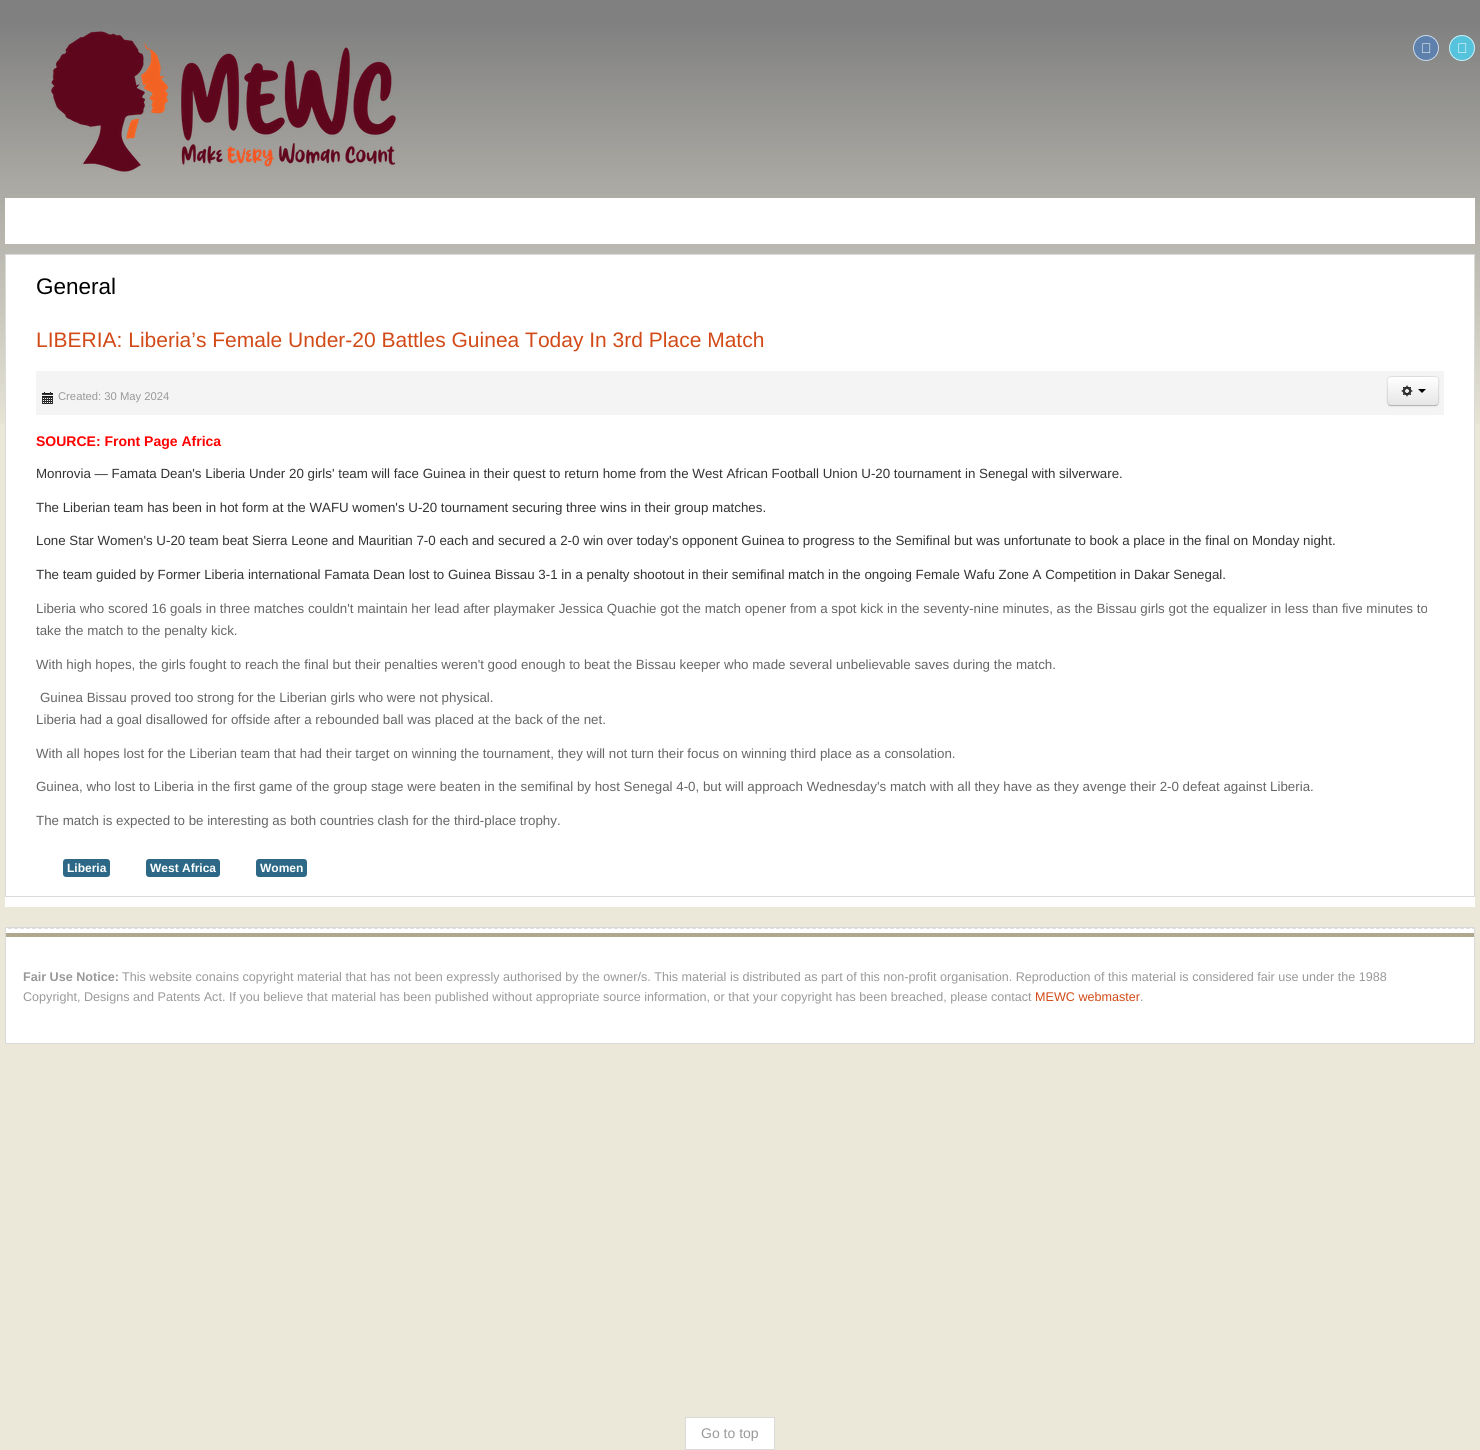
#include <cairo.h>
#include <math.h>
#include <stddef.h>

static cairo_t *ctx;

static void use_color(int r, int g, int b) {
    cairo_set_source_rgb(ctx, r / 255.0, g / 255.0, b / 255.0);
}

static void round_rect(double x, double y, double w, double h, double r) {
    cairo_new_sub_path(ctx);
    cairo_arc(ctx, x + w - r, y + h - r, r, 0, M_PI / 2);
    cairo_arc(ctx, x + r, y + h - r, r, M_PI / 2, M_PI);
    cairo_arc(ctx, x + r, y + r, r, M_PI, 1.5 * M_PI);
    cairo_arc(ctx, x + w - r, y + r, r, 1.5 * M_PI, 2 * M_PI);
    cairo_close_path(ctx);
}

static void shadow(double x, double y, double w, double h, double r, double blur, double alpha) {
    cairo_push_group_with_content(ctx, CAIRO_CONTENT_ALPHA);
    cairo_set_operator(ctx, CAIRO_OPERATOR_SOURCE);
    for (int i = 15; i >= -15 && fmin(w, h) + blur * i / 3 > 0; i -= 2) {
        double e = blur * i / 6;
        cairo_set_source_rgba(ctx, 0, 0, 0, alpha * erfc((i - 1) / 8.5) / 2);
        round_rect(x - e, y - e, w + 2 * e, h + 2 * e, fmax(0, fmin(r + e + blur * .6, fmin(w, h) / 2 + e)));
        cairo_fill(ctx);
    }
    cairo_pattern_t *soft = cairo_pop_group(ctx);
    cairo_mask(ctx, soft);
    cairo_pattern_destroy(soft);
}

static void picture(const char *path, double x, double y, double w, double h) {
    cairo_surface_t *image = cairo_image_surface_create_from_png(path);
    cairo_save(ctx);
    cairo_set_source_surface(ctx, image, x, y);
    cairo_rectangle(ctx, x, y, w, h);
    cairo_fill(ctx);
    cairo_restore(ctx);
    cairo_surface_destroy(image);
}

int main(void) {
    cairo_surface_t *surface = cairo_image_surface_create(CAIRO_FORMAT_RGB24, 1480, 1450);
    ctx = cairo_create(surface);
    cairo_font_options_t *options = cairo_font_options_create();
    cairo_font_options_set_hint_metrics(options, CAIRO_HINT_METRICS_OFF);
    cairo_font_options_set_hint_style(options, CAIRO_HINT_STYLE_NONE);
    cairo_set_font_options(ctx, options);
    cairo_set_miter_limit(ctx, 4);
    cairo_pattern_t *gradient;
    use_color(235, 232, 217);
    cairo_paint(ctx);
    picture("img1.png", 0, 0, 1480, 424);
    picture("img2.png", 51, 31, 347, 143);
    use_color(93, 128, 172);
    cairo_arc(ctx, 1426, 48, 13, 0, 2 * M_PI);
    cairo_fill(ctx);
    cairo_arc(ctx, 1426, 48, 12.5, 0, 2 * M_PI);
    cairo_set_source_rgba(ctx, 1, 1, 1, 0.7);
    cairo_set_line_width(ctx, 1);
    cairo_stroke(ctx);
    picture("img3.png", 1422, 43, 9, 10);
    use_color(85, 195, 219);
    cairo_arc(ctx, 1462, 48, 13, 0, 2 * M_PI);
    cairo_fill(ctx);
    cairo_arc(ctx, 1462, 48, 12.5, 0, 2 * M_PI);
    cairo_set_source_rgba(ctx, 1, 1, 1, 0.7);
    cairo_stroke(ctx);
    picture("img4.png", 1458, 43, 9, 10);
    use_color(255, 255, 255);
    cairo_rectangle(ctx, 5, 198, 1470, 46);
    cairo_fill(ctx);
    cairo_rectangle(ctx, 5, 255, 1470, 652);
    cairo_fill(ctx);
    cairo_rectangle(ctx, 5.5, 254.5, 1469, 642);
    use_color(218, 218, 218);
    cairo_stroke(ctx);
    cairo_select_font_face(ctx, "Liberation Sans", CAIRO_FONT_SLANT_NORMAL, CAIRO_FONT_WEIGHT_NORMAL);
    cairo_set_font_size(ctx, 22.5);
    use_color(0, 0, 0);
    cairo_move_to(ctx, 36, 294);
    cairo_show_text(ctx, "General");
    cairo_set_font_size(ctx, 21);
    use_color(210, 74, 23);
    cairo_move_to(ctx, 36, 347);
    cairo_show_text(ctx, "LIBERIA: Liberia’s Female Under-20 Battles Guinea Today In 3rd Place Match");
    use_color(244, 244, 244);
    cairo_rectangle(ctx, 36, 371, 1408, 44);
    cairo_fill(ctx);
    picture("img5.png", 42, 392, 11, 12);
    cairo_set_font_size(ctx, 11.25);
    use_color(153, 153, 153);
    cairo_move_to(ctx, 58, 400);
    cairo_show_text(ctx, "Created: 30 May 2024");
    use_color(0, 0, 0);
    shadow(1387, 377, 52, 30, 4, 1, 0.05);
    use_color(245, 245, 245);
    round_rect(1387, 376, 52, 30, 4);
    cairo_fill(ctx);
    cairo_save(ctx);
    round_rect(1387, 376, 52, 30, 4);
    cairo_clip(ctx);
    gradient = cairo_pattern_create_linear(1413, 377, 1413, 405);
    cairo_pattern_add_color_stop_rgba(gradient, 0, 1, 1, 1, 1);
    cairo_pattern_add_color_stop_rgba(gradient, 1, 0.902, 0.902, 0.902, 1);
    cairo_set_source(ctx, gradient);
    cairo_pattern_destroy(gradient);
    cairo_rectangle(ctx, 1387, 377, 52, 28);
    cairo_fill(ctx);
    cairo_restore(ctx);
    use_color(255, 255, 255);
    cairo_new_path(ctx);
    cairo_move_to(ctx, 1391, 378);
    cairo_line_to(ctx, 1435, 378);
    cairo_curve_to(ctx, 1437, 378, 1438, 379, 1438, 381);
    cairo_curve_to(ctx, 1438, 375, 1432, 377, 1428, 377);
    cairo_line_to(ctx, 1398, 377);
    cairo_curve_to(ctx, 1394, 377, 1388, 375, 1388, 381);
    cairo_curve_to(ctx, 1388, 379, 1389, 378, 1391, 378);
    cairo_close_path(ctx);
    cairo_fill(ctx);
    cairo_new_path(ctx);
    cairo_move_to(ctx, 1437.5, 404.5);
    cairo_curve_to(ctx, 1437, 405, 1436, 405.5, 1435, 405.5);
    cairo_line_to(ctx, 1391, 405.5);
    cairo_curve_to(ctx, 1390, 405.5, 1389, 405, 1388.5, 404.5);
    use_color(179, 179, 179);
    cairo_stroke(ctx);
    cairo_new_path(ctx);
    cairo_move_to(ctx, 1388.5, 404.5);
    cairo_curve_to(ctx, 1386.5, 402.5, 1387.5, 394, 1387.5, 391);
    cairo_curve_to(ctx, 1387.5, 376.5, 1384.5, 376.5, 1398.5, 376.5);
    cairo_line_to(ctx, 1427.5, 376.5);
    cairo_curve_to(ctx, 1441.5, 376.5, 1438.5, 376.5, 1438.5, 391);
    cairo_curve_to(ctx, 1438.5, 394, 1439.5, 402.5, 1437.5, 404.5);
    cairo_set_source_rgba(ctx, 0, 0, 0, 0.1);
    cairo_stroke(ctx);
    picture("img6.png", 1401, 385, 12, 12);
    use_color(0, 0, 0);
    cairo_new_path(ctx);
    cairo_move_to(ctx, 1418, 389);
    cairo_line_to(ctx, 1426, 389);
    cairo_line_to(ctx, 1422, 393);
    cairo_close_path(ctx);
    cairo_fill(ctx);
    cairo_select_font_face(ctx, "Liberation Sans", CAIRO_FONT_SLANT_NORMAL, CAIRO_FONT_WEIGHT_BOLD);
    cairo_set_font_size(ctx, 14);
    use_color(255, 0, 0);
    cairo_move_to(ctx, 36, 446);
    cairo_show_text(ctx, "SOURCE: Front Page Africa");
    cairo_select_font_face(ctx, "Liberation Sans", CAIRO_FONT_SLANT_NORMAL, CAIRO_FONT_WEIGHT_NORMAL);
    cairo_set_font_size(ctx, 13.33);
    use_color(51, 51, 51);
    cairo_move_to(ctx, 36, 478);
    cairo_show_text(ctx, "Monrovia — Famata Dean's Liberia Under 20 girls' team will face Guinea in their quest to return home from the West African Football Union U-20 tournament in Senegal with silverware.");
    cairo_move_to(ctx, 36, 512);
    cairo_show_text(ctx, "The Liberian team has been in hot form at the WAFU women's U-20 tournament securing three wins in their group matches.");
    cairo_move_to(ctx, 36, 545);
    cairo_show_text(ctx, "Lone Star Women's U-20 team beat Sierra Leone and Mauritian 7-0 each and secured a 2-0 win over today's opponent Guinea to progress to the Semifinal but was unfortunate to book a place in the final on Monday night.");
    cairo_move_to(ctx, 36, 579);
    cairo_show_text(ctx, "The team guided by Former Liberia international Famata Dean lost to Guinea Bissau 3-1 in a penalty shootout in their semifinal match in the ongoing Female Wafu Zone A Competition in Dakar Senegal.");
    use_color(102, 102, 102);
    cairo_move_to(ctx, 36, 613);
    cairo_show_text(ctx, "Liberia who scored 16 goals in three matches couldn't maintain her lead after playmaker Jessica Quachie got the match opener from a spot kick in the seventy-nine minutes, as the Bissau girls got the equalizer in less than five minutes to");
    cairo_move_to(ctx, 36, 635);
    cairo_show_text(ctx, "take the match to the penalty kick.");
    cairo_move_to(ctx, 36, 669);
    cairo_show_text(ctx, "With high hopes, the girls fought to reach the final but their penalties weren't good enough to beat the Bissau keeper who made several unbelievable saves during the match.");
    cairo_move_to(ctx, 40, 702);
    cairo_show_text(ctx, "Guinea Bissau proved too strong for the Liberian girls who were not physical.");
    cairo_move_to(ctx, 36, 724);
    cairo_show_text(ctx, "Liberia had a goal disallowed for offside after a rebounded ball was placed at the back of the net.");
    cairo_move_to(ctx, 36, 758);
    cairo_show_text(ctx, "With all hopes lost for the Liberian team that had their target on winning the tournament, they will not turn their focus on winning third place as a consolation.");
    cairo_move_to(ctx, 36, 791);
    cairo_show_text(ctx, "Guinea, who lost to Liberia in the first game of the group stage were beaten in the semifinal by host Senegal 4-0, but will approach Wednesday's match with all they have as they avenge their 2-0 defeat against Liberia.");
    cairo_move_to(ctx, 36, 825);
    cairo_show_text(ctx, "The match is expected to be interesting as both countries clash for the third-place trophy.");
    use_color(45, 105, 135);
    round_rect(63, 859, 47, 18, 3);
    cairo_fill(ctx);
    cairo_select_font_face(ctx, "Liberation Sans", CAIRO_FONT_SLANT_NORMAL, CAIRO_FONT_WEIGHT_BOLD);
    cairo_set_font_size(ctx, 12);
    use_color(255, 255, 255);
    cairo_move_to(ctx, 67, 872);
    cairo_show_text(ctx, "Liberia");
    use_color(45, 105, 135);
    round_rect(146, 859, 74, 18, 3);
    cairo_fill(ctx);
    use_color(255, 255, 255);
    cairo_move_to(ctx, 150, 872);
    cairo_show_text(ctx, "West Africa");
    use_color(45, 105, 135);
    round_rect(256, 859, 51, 18, 3);
    cairo_fill(ctx);
    use_color(255, 255, 255);
    cairo_move_to(ctx, 260, 872);
    cairo_show_text(ctx, "Women");
    cairo_rectangle(ctx, 6, 929, 1468, 114);
    cairo_fill(ctx);
    picture("img7.png", 6, 928, 1468, 1);
    cairo_rectangle(ctx, 5.5, 927.5, 1469, 116);
    use_color(218, 218, 218);
    cairo_stroke(ctx);
    use_color(176, 168, 142);
    cairo_rectangle(ctx, 6, 933, 1468, 4);
    cairo_fill(ctx);
    cairo_set_font_size(ctx, 12.6);
    use_color(153, 153, 153);
    cairo_move_to(ctx, 23, 981);
    cairo_show_text(ctx, "Fair Use Notice:");
    cairo_select_font_face(ctx, "Liberation Sans", CAIRO_FONT_SLANT_NORMAL, CAIRO_FONT_WEIGHT_NORMAL);
    cairo_move_to(ctx, 122, 981);
    cairo_show_text(ctx, "This website conains copyright material that has not been expressly authorised by the owner/s. This material is distributed as part of this non-profit organisation. Reproduction of this material is considered fair use under the 1988");
    cairo_move_to(ctx, 23, 1001);
    cairo_show_text(ctx, "Copyright, Designs and Patents Act. If you believe that material has been published without appropriate source information, or that your copyright has been breached, please contact");
    use_color(210, 74, 23);
    cairo_move_to(ctx, 1035, 1001);
    cairo_show_text(ctx, "MEWC webmaster");
    use_color(153, 153, 153);
    cairo_move_to(ctx, 1140, 1001);
    cairo_show_text(ctx, ".");
    use_color(255, 255, 255);
    cairo_rectangle(ctx, 685.5, 1417.5, 89, 32);
    cairo_fill_preserve(ctx);
    use_color(218, 218, 218);
    cairo_stroke(ctx);
    cairo_set_font_size(ctx, 14);
    use_color(153, 153, 153);
    cairo_move_to(ctx, 701, 1438);
    cairo_show_text(ctx, "Go to top");
    cairo_surface_write_to_png(surface, "result.png");
    cairo_font_options_destroy(options);
    cairo_destroy(ctx);
    cairo_surface_destroy(surface);
    return 0;
}
